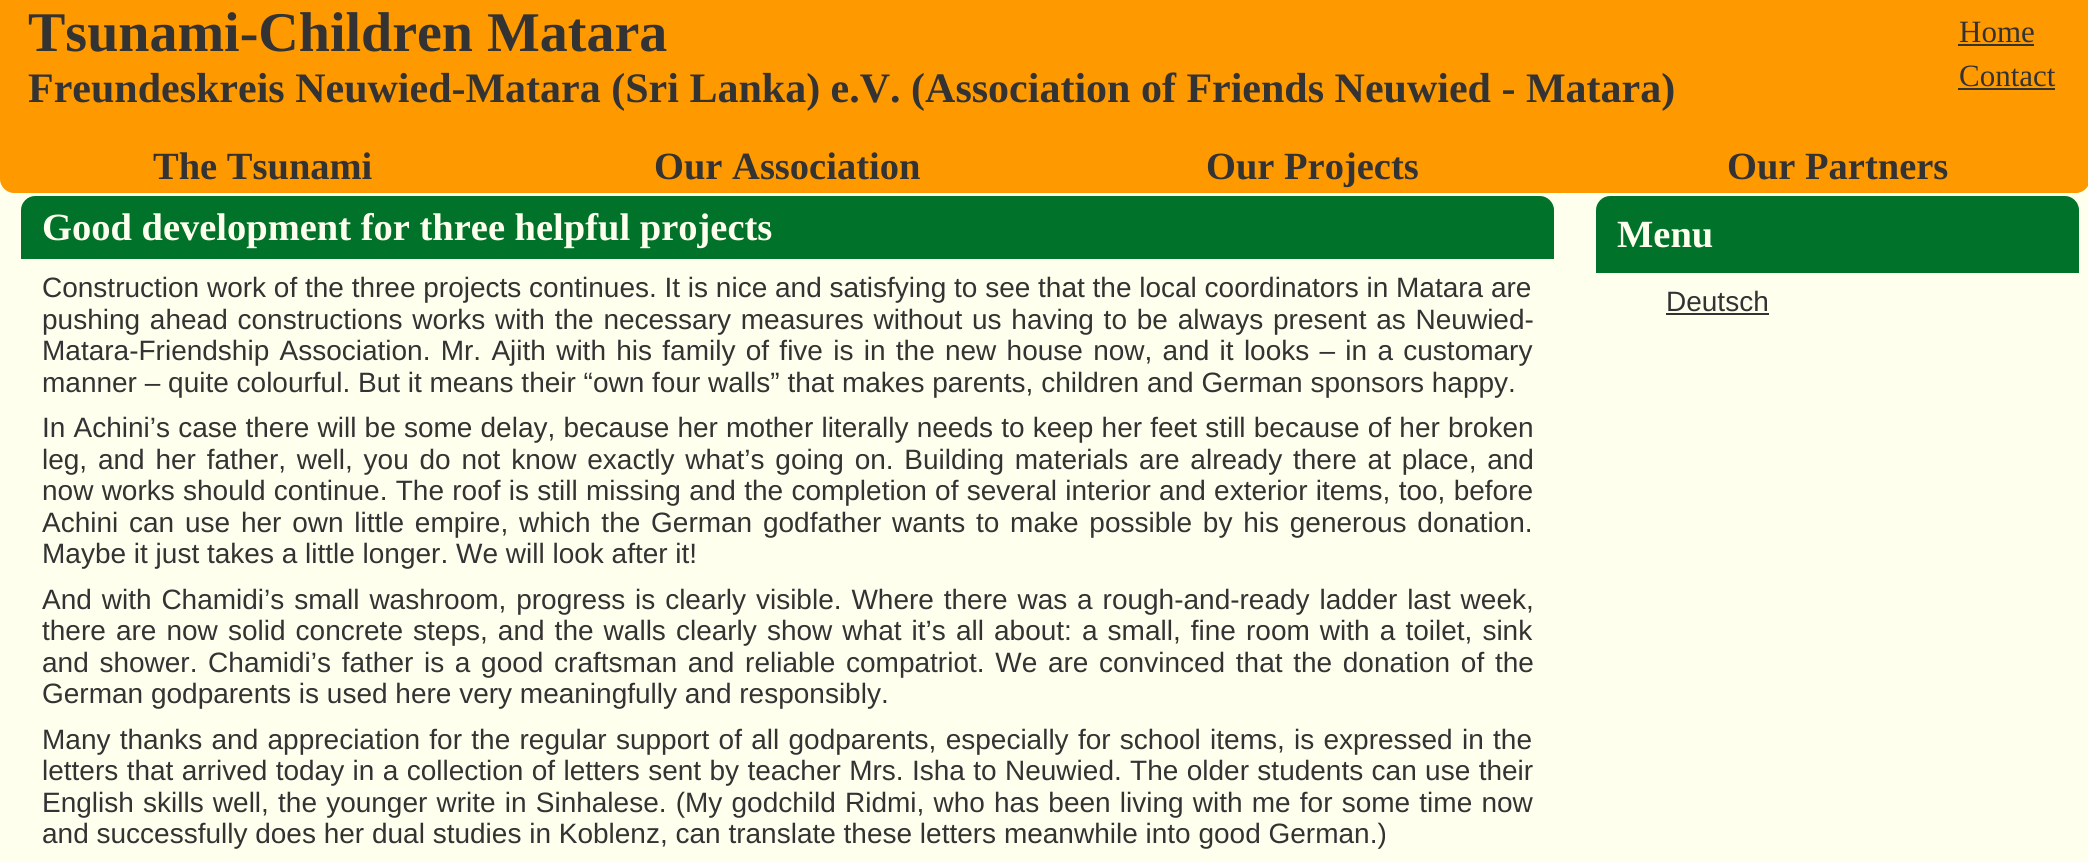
#include <cairo.h>
#include <math.h>
#include <stddef.h>

static cairo_t *ctx;

static void use_color(int r, int g, int b) {
    cairo_set_source_rgb(ctx, r / 255.0, g / 255.0, b / 255.0);
}

static void spaced_text(double x, double y, const char *s, double letter, double word) {
    cairo_move_to(ctx, x, y);
    while (*s) {
        char ch[5] = {0};
        int n = 0;
        do ch[n++] = *s++; while ((*s & 0xC0) == 0x80);
        cairo_show_text(ctx, ch);
        cairo_rel_move_to(ctx, letter + word * (*ch == ' '), 0);
    }
}

int main(void) {
    cairo_surface_t *surface = cairo_image_surface_create(CAIRO_FORMAT_RGB24, 2088, 862);
    ctx = cairo_create(surface);
    cairo_font_options_t *options = cairo_font_options_create();
    cairo_font_options_set_hint_metrics(options, CAIRO_HINT_METRICS_OFF);
    cairo_font_options_set_hint_style(options, CAIRO_HINT_STYLE_NONE);
    cairo_set_font_options(ctx, options);
    cairo_set_miter_limit(ctx, 4);
    use_color(255, 255, 238);
    cairo_paint(ctx);
    use_color(255, 153, 0);
    cairo_new_path(ctx);
    cairo_move_to(ctx, 0, 0);
    cairo_line_to(ctx, 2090, 0);
    cairo_line_to(ctx, 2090, 179);
    cairo_curve_to(ctx, 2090, 186.5, 2083.5, 193, 2076, 193);
    cairo_line_to(ctx, 14, 193);
    cairo_curve_to(ctx, 6.5, 193, 0, 186.5, 0, 179);
    cairo_close_path(ctx);
    cairo_fill(ctx);
    cairo_select_font_face(ctx, "Liberation Serif", CAIRO_FONT_SLANT_NORMAL, CAIRO_FONT_WEIGHT_BOLD);
    cairo_set_font_size(ctx, 56);
    use_color(51, 51, 51);
    cairo_move_to(ctx, 28, 51);
    cairo_show_text(ctx, "Tsunami-Children Matara");
    cairo_set_font_size(ctx, 42);
    cairo_move_to(ctx, 28, 102);
    cairo_show_text(ctx, "Freundeskreis Neuwied-Matara (Sri Lanka) e.V. (Association of Friends Neuwied - Matara)");
    cairo_select_font_face(ctx, "Liberation Serif", CAIRO_FONT_SLANT_NORMAL, CAIRO_FONT_WEIGHT_NORMAL);
    cairo_set_font_size(ctx, 31);
    cairo_move_to(ctx, 1959, 42);
    cairo_show_text(ctx, "Home");
    cairo_rectangle(ctx, 1958, 44, 76, 2);
    cairo_fill(ctx);
    cairo_move_to(ctx, 1959, 86);
    cairo_show_text(ctx, "Contact");
    cairo_rectangle(ctx, 1958, 88, 97, 2);
    cairo_fill(ctx);
    cairo_select_font_face(ctx, "Liberation Serif", CAIRO_FONT_SLANT_NORMAL, CAIRO_FONT_WEIGHT_BOLD);
    cairo_set_font_size(ctx, 38.5);
    cairo_move_to(ctx, 153, 179);
    cairo_show_text(ctx, "The Tsunami");
    cairo_move_to(ctx, 654, 179);
    cairo_show_text(ctx, "Our Association");
    cairo_move_to(ctx, 1206, 179);
    cairo_show_text(ctx, "Our Projects");
    cairo_move_to(ctx, 1727, 179);
    cairo_show_text(ctx, "Our Partners");
    use_color(0, 114, 41);
    cairo_new_path(ctx);
    cairo_move_to(ctx, 35, 196);
    cairo_line_to(ctx, 1540, 196);
    cairo_curve_to(ctx, 1547.5, 196, 1554, 202.5, 1554, 210);
    cairo_line_to(ctx, 1554, 259);
    cairo_line_to(ctx, 21, 259);
    cairo_line_to(ctx, 21, 210);
    cairo_curve_to(ctx, 21, 202.5, 27.5, 196, 35, 196);
    cairo_close_path(ctx);
    cairo_fill(ctx);
    use_color(255, 255, 238);
    cairo_move_to(ctx, 42, 240);
    cairo_show_text(ctx, "Good development for three helpful projects");
    cairo_select_font_face(ctx, "Liberation Sans", CAIRO_FONT_SLANT_NORMAL, CAIRO_FONT_WEIGHT_NORMAL);
    cairo_set_font_size(ctx, 28);
    use_color(51, 51, 51);
    cairo_move_to(ctx, 42, 297);
    cairo_show_text(ctx, "Construction work of the three projects continues. It is nice and satisfying to see that the local coordinators in Matara are");
    spaced_text(42, 329, "pushing ahead constructions works with the necessary measures without us having to be always present as Neuwied-", 0, 2);
    spaced_text(42, 360, "Matara-Friendship Association. Mr. Ajith with his family of five is in the new house now, and it looks – in a customary", 0, 2.5);
    cairo_move_to(ctx, 42, 392);
    cairo_show_text(ctx, "manner – quite colourful. But it means their “own four walls” that makes parents, children and German sponsors happy.");
    spaced_text(42, 437, "In Achini’s case there will be some delay, because her mother literally needs to keep her feet still because of her broken", 0, 0.4);
    spaced_text(42, 469, "leg, and her father, well, you do not know exactly what’s going on. Building materials are already there at place, and", 0, 3);
    spaced_text(42, 500, "now works should continue. The roof is still missing and the completion of several interior and exterior items, too, before", 0, 0.5);
    spaced_text(42, 532, "Achini can use her own little empire, which the German godfather wants to make possible by his generous donation.", 0, 3);
    cairo_move_to(ctx, 42, 563);
    cairo_show_text(ctx, "Maybe it just takes a little longer. We will look after it!");
    spaced_text(42, 609, "And with Chamidi’s small washroom, progress is clearly visible. Where there was a rough-and-ready ladder last week,", 0, 2.1);
    spaced_text(42, 640, "there are now solid concrete steps, and the walls clearly show what it’s all about: a small, fine room with a toilet, sink", 0, 2.3);
    spaced_text(42, 672, "and shower. Chamidi’s father is a good craftsman and reliable compatriot. We are convinced that the donation of the", 0, 2.9);
    cairo_move_to(ctx, 42, 703);
    cairo_show_text(ctx, "German godparents is used here very meaningfully and responsibly.");
    spaced_text(42, 749, "Many thanks and appreciation for the regular support of all godparents, especially for school items, is expressed in the", 0, 1.5);
    spaced_text(42, 780, "letters that arrived today in a collection of letters sent by teacher Mrs. Isha to Neuwied. The older students can use their", 0, 0.6);
    spaced_text(42, 812, "English skills well, the younger write in Sinhalese. (My godchild Ridmi, who has been living with me for some time now", 0, 1.4);
    cairo_move_to(ctx, 42, 843);
    cairo_show_text(ctx, "and successfully does her dual studies in Koblenz, can translate these letters meanwhile into good German.)");
    use_color(0, 114, 41);
    cairo_new_path(ctx);
    cairo_move_to(ctx, 1610, 196);
    cairo_line_to(ctx, 2065, 196);
    cairo_curve_to(ctx, 2072.5, 196, 2079, 202.5, 2079, 210);
    cairo_line_to(ctx, 2079, 273);
    cairo_line_to(ctx, 1596, 273);
    cairo_line_to(ctx, 1596, 210);
    cairo_curve_to(ctx, 1596, 202.5, 1602.5, 196, 1610, 196);
    cairo_close_path(ctx);
    cairo_fill(ctx);
    cairo_select_font_face(ctx, "Liberation Serif", CAIRO_FONT_SLANT_NORMAL, CAIRO_FONT_WEIGHT_BOLD);
    cairo_set_font_size(ctx, 38.5);
    use_color(255, 255, 238);
    cairo_move_to(ctx, 1617, 247);
    cairo_show_text(ctx, "Menu");
    cairo_select_font_face(ctx, "Liberation Sans", CAIRO_FONT_SLANT_NORMAL, CAIRO_FONT_WEIGHT_NORMAL);
    cairo_set_font_size(ctx, 28);
    use_color(51, 51, 51);
    cairo_move_to(ctx, 1666, 311);
    cairo_show_text(ctx, "Deutsch");
    cairo_rectangle(ctx, 1666, 313, 103, 2);
    cairo_fill(ctx);
    cairo_surface_write_to_png(surface, "result.png");
    cairo_font_options_destroy(options);
    cairo_destroy(ctx);
    cairo_surface_destroy(surface);
    return 0;
}
